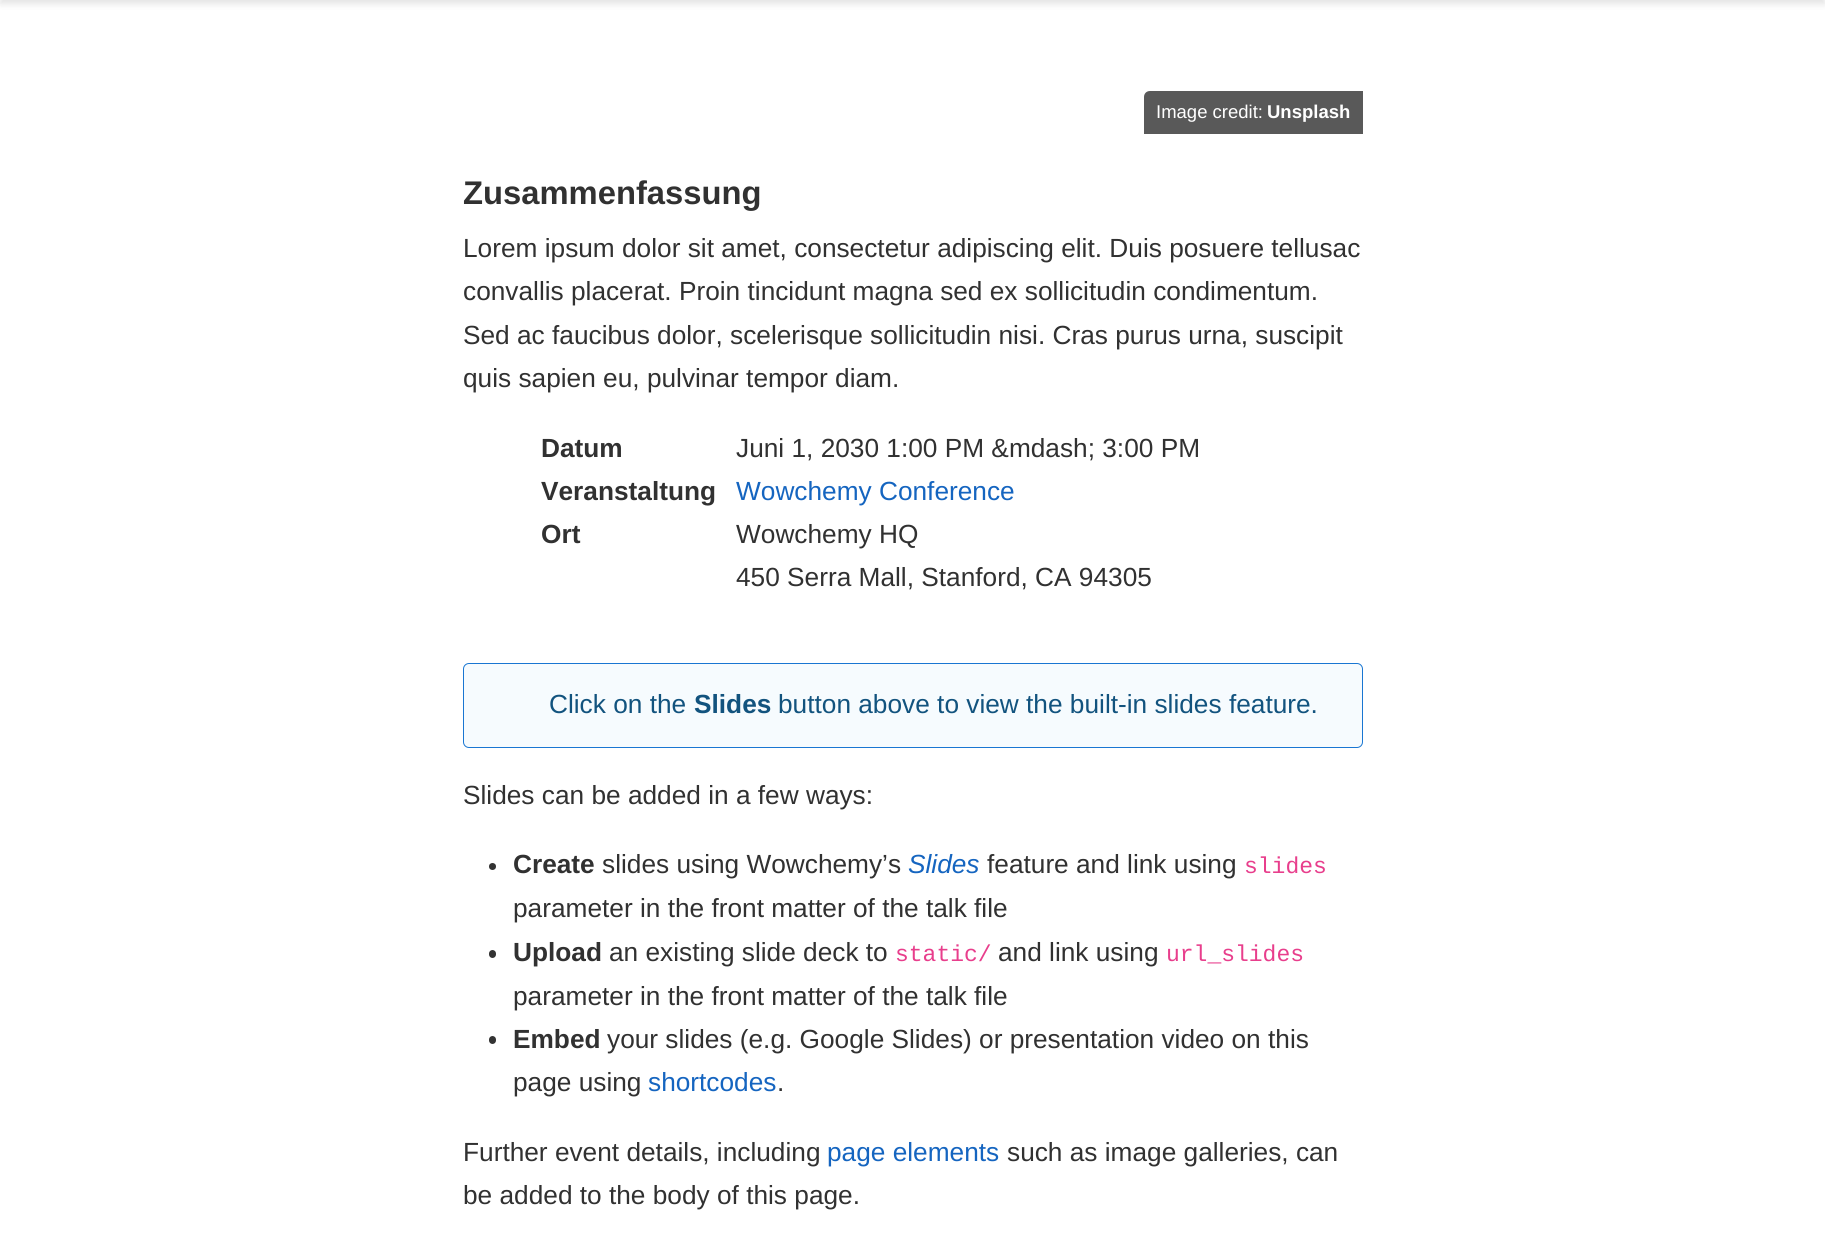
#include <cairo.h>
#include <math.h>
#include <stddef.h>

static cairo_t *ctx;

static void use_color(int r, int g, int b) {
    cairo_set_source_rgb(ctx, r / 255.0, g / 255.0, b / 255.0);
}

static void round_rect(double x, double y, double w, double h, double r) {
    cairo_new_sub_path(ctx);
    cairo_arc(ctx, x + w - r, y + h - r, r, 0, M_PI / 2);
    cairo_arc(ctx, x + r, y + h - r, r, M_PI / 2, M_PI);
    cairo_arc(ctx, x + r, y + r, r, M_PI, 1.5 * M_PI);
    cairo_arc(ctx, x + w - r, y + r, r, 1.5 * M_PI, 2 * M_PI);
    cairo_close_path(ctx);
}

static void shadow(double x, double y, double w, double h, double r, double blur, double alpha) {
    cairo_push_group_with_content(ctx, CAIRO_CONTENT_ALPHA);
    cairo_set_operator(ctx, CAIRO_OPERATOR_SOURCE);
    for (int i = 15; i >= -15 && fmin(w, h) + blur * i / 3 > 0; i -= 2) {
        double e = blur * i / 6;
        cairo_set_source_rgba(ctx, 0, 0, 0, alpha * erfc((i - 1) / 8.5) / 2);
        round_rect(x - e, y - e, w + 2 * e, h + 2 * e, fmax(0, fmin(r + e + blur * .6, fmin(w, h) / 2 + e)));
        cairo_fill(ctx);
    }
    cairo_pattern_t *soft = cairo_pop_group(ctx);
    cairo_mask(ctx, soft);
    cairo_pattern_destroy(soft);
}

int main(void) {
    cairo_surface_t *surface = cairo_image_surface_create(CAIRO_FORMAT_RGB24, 1825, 1253);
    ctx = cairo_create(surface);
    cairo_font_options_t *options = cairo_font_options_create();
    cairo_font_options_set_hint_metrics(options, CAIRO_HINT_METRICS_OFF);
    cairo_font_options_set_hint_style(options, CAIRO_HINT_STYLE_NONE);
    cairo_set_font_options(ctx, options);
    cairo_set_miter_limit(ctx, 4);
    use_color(255, 255, 255);
    cairo_paint(ctx);
    use_color(0, 0, 0);
    shadow(0, -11, 1825, 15, 0, 3.5, 0.11);
    use_color(89, 89, 89);
    cairo_new_path(ctx);
    cairo_move_to(ctx, 1150, 91);
    cairo_line_to(ctx, 1363, 91);
    cairo_line_to(ctx, 1363, 134);
    cairo_line_to(ctx, 1144, 134);
    cairo_line_to(ctx, 1144, 97);
    cairo_curve_to(ctx, 1144, 93.5, 1146.5, 91, 1150, 91);
    cairo_close_path(ctx);
    cairo_fill(ctx);
    cairo_select_font_face(ctx, "Liberation Sans", CAIRO_FONT_SLANT_NORMAL, CAIRO_FONT_WEIGHT_NORMAL);
    cairo_set_font_size(ctx, 18.5);
    use_color(255, 255, 255);
    cairo_move_to(ctx, 1156, 118);
    cairo_show_text(ctx, "Image credit:");
    cairo_select_font_face(ctx, "Liberation Sans", CAIRO_FONT_SLANT_NORMAL, CAIRO_FONT_WEIGHT_BOLD);
    cairo_move_to(ctx, 1267, 118);
    cairo_show_text(ctx, "Unsplash");
    cairo_set_font_size(ctx, 32.75);
    use_color(49, 49, 49);
    cairo_move_to(ctx, 463, 204);
    cairo_show_text(ctx, "Zusammenfassung");
    cairo_select_font_face(ctx, "Liberation Sans", CAIRO_FONT_SLANT_NORMAL, CAIRO_FONT_WEIGHT_NORMAL);
    cairo_set_font_size(ctx, 26.25);
    cairo_move_to(ctx, 463, 257);
    cairo_show_text(ctx, "Lorem ipsum dolor sit amet, consectetur adipiscing elit. Duis posuere tellusac");
    cairo_move_to(ctx, 463, 300);
    cairo_show_text(ctx, "convallis placerat. Proin tincidunt magna sed ex sollicitudin condimentum.");
    cairo_move_to(ctx, 463, 344);
    cairo_show_text(ctx, "Sed ac faucibus dolor, scelerisque sollicitudin nisi. Cras purus urna, suscipit");
    cairo_move_to(ctx, 463, 387);
    cairo_show_text(ctx, "quis sapien eu, pulvinar tempor diam.");
    cairo_select_font_face(ctx, "Liberation Sans", CAIRO_FONT_SLANT_NORMAL, CAIRO_FONT_WEIGHT_BOLD);
    cairo_move_to(ctx, 541, 457);
    cairo_show_text(ctx, "Datum");
    cairo_select_font_face(ctx, "Liberation Sans", CAIRO_FONT_SLANT_NORMAL, CAIRO_FONT_WEIGHT_NORMAL);
    cairo_move_to(ctx, 736, 457);
    cairo_show_text(ctx, "Juni 1, 2030 1:00 PM &mdash; 3:00 PM");
    cairo_select_font_face(ctx, "Liberation Sans", CAIRO_FONT_SLANT_NORMAL, CAIRO_FONT_WEIGHT_BOLD);
    cairo_move_to(ctx, 541, 500);
    cairo_show_text(ctx, "Veranstaltung");
    cairo_select_font_face(ctx, "Liberation Sans", CAIRO_FONT_SLANT_NORMAL, CAIRO_FONT_WEIGHT_NORMAL);
    use_color(21, 101, 192);
    cairo_move_to(ctx, 736, 500);
    cairo_show_text(ctx, "Wowchemy Conference");
    cairo_select_font_face(ctx, "Liberation Sans", CAIRO_FONT_SLANT_NORMAL, CAIRO_FONT_WEIGHT_BOLD);
    use_color(49, 49, 49);
    cairo_move_to(ctx, 541, 543);
    cairo_show_text(ctx, "Ort");
    cairo_select_font_face(ctx, "Liberation Sans", CAIRO_FONT_SLANT_NORMAL, CAIRO_FONT_WEIGHT_NORMAL);
    cairo_move_to(ctx, 736, 543);
    cairo_show_text(ctx, "Wowchemy HQ");
    cairo_move_to(ctx, 736, 586);
    cairo_show_text(ctx, "450 Serra Mall, Stanford, CA 94305");
    use_color(246, 251, 254);
    round_rect(463.5, 663.5, 899, 84, 5.5);
    cairo_fill_preserve(ctx);
    use_color(25, 118, 210);
    cairo_set_line_width(ctx, 1);
    cairo_stroke(ctx);
    use_color(18, 83, 126);
    cairo_move_to(ctx, 549, 713);
    cairo_show_text(ctx, "Click on the");
    cairo_select_font_face(ctx, "Liberation Sans", CAIRO_FONT_SLANT_NORMAL, CAIRO_FONT_WEIGHT_BOLD);
    cairo_move_to(ctx, 694, 713);
    cairo_show_text(ctx, "Slides");
    cairo_select_font_face(ctx, "Liberation Sans", CAIRO_FONT_SLANT_NORMAL, CAIRO_FONT_WEIGHT_NORMAL);
    cairo_move_to(ctx, 778, 713);
    cairo_show_text(ctx, "button above to view the built-in slides feature.");
    use_color(49, 49, 49);
    cairo_move_to(ctx, 463, 804);
    cairo_show_text(ctx, "Slides can be added in a few ways:");
    use_color(51, 51, 51);
    cairo_new_path(ctx);
    cairo_arc(ctx, 492.5, 866.5, 3.5, 0, 2 * M_PI);
    cairo_fill(ctx);
    cairo_select_font_face(ctx, "Liberation Sans", CAIRO_FONT_SLANT_NORMAL, CAIRO_FONT_WEIGHT_BOLD);
    use_color(49, 49, 49);
    cairo_move_to(ctx, 513, 873);
    cairo_show_text(ctx, "Create");
    cairo_select_font_face(ctx, "Liberation Sans", CAIRO_FONT_SLANT_NORMAL, CAIRO_FONT_WEIGHT_NORMAL);
    cairo_move_to(ctx, 602, 873);
    cairo_show_text(ctx, "slides using Wowchemy’s");
    cairo_select_font_face(ctx, "Liberation Sans", CAIRO_FONT_SLANT_ITALIC, CAIRO_FONT_WEIGHT_NORMAL);
    use_color(21, 101, 192);
    cairo_move_to(ctx, 908, 873);
    cairo_show_text(ctx, "Slides");
    cairo_select_font_face(ctx, "Liberation Sans", CAIRO_FONT_SLANT_NORMAL, CAIRO_FONT_WEIGHT_NORMAL);
    use_color(49, 49, 49);
    cairo_move_to(ctx, 987, 873);
    cairo_show_text(ctx, "feature and link using");
    cairo_select_font_face(ctx, "Liberation Mono", CAIRO_FONT_SLANT_NORMAL, CAIRO_FONT_WEIGHT_NORMAL);
    cairo_set_font_size(ctx, 23);
    use_color(232, 62, 140);
    cairo_move_to(ctx, 1244, 873);
    cairo_show_text(ctx, "slides");
    cairo_select_font_face(ctx, "Liberation Sans", CAIRO_FONT_SLANT_NORMAL, CAIRO_FONT_WEIGHT_NORMAL);
    cairo_set_font_size(ctx, 26.25);
    use_color(49, 49, 49);
    cairo_move_to(ctx, 513, 917);
    cairo_show_text(ctx, "parameter in the front matter of the talk file");
    use_color(51, 51, 51);
    round_rect(489, 950, 7, 8, 3.5);
    cairo_fill(ctx);
    cairo_select_font_face(ctx, "Liberation Sans", CAIRO_FONT_SLANT_NORMAL, CAIRO_FONT_WEIGHT_BOLD);
    use_color(49, 49, 49);
    cairo_move_to(ctx, 513, 961);
    cairo_show_text(ctx, "Upload");
    cairo_select_font_face(ctx, "Liberation Sans", CAIRO_FONT_SLANT_NORMAL, CAIRO_FONT_WEIGHT_NORMAL);
    cairo_move_to(ctx, 609, 961);
    cairo_show_text(ctx, "an existing slide deck to");
    cairo_select_font_face(ctx, "Liberation Mono", CAIRO_FONT_SLANT_NORMAL, CAIRO_FONT_WEIGHT_NORMAL);
    cairo_set_font_size(ctx, 23);
    use_color(232, 62, 140);
    cairo_move_to(ctx, 895, 961);
    cairo_show_text(ctx, "static/");
    cairo_select_font_face(ctx, "Liberation Sans", CAIRO_FONT_SLANT_NORMAL, CAIRO_FONT_WEIGHT_NORMAL);
    cairo_set_font_size(ctx, 26.25);
    use_color(49, 49, 49);
    cairo_move_to(ctx, 998, 961);
    cairo_show_text(ctx, "and link using");
    cairo_select_font_face(ctx, "Liberation Mono", CAIRO_FONT_SLANT_NORMAL, CAIRO_FONT_WEIGHT_NORMAL);
    cairo_set_font_size(ctx, 23);
    use_color(232, 62, 140);
    cairo_move_to(ctx, 1166, 961);
    cairo_show_text(ctx, "url_slides");
    cairo_select_font_face(ctx, "Liberation Sans", CAIRO_FONT_SLANT_NORMAL, CAIRO_FONT_WEIGHT_NORMAL);
    cairo_set_font_size(ctx, 26.25);
    use_color(49, 49, 49);
    cairo_move_to(ctx, 513, 1005);
    cairo_show_text(ctx, "parameter in the front matter of the talk file");
    use_color(51, 51, 51);
    round_rect(489, 1036, 7, 8, 3.5);
    cairo_fill(ctx);
    cairo_select_font_face(ctx, "Liberation Sans", CAIRO_FONT_SLANT_NORMAL, CAIRO_FONT_WEIGHT_BOLD);
    use_color(49, 49, 49);
    cairo_move_to(ctx, 513, 1048);
    cairo_show_text(ctx, "Embed");
    cairo_select_font_face(ctx, "Liberation Sans", CAIRO_FONT_SLANT_NORMAL, CAIRO_FONT_WEIGHT_NORMAL);
    cairo_move_to(ctx, 607, 1048);
    cairo_show_text(ctx, "your slides (e.g. Google Slides) or presentation video on this");
    cairo_move_to(ctx, 513, 1091);
    cairo_show_text(ctx, "page using");
    use_color(21, 101, 192);
    cairo_move_to(ctx, 648, 1091);
    cairo_show_text(ctx, "shortcodes");
    use_color(49, 49, 49);
    cairo_move_to(ctx, 777, 1091);
    cairo_show_text(ctx, ".");
    cairo_move_to(ctx, 463, 1161);
    cairo_show_text(ctx, "Further event details, including");
    use_color(21, 101, 192);
    cairo_move_to(ctx, 827, 1161);
    cairo_show_text(ctx, "page elements");
    use_color(49, 49, 49);
    cairo_move_to(ctx, 1007, 1161);
    cairo_show_text(ctx, "such as image galleries, can");
    cairo_move_to(ctx, 463, 1204);
    cairo_show_text(ctx, "be added to the body of this page.");
    cairo_surface_write_to_png(surface, "result.png");
    cairo_font_options_destroy(options);
    cairo_destroy(ctx);
    cairo_surface_destroy(surface);
    return 0;
}
